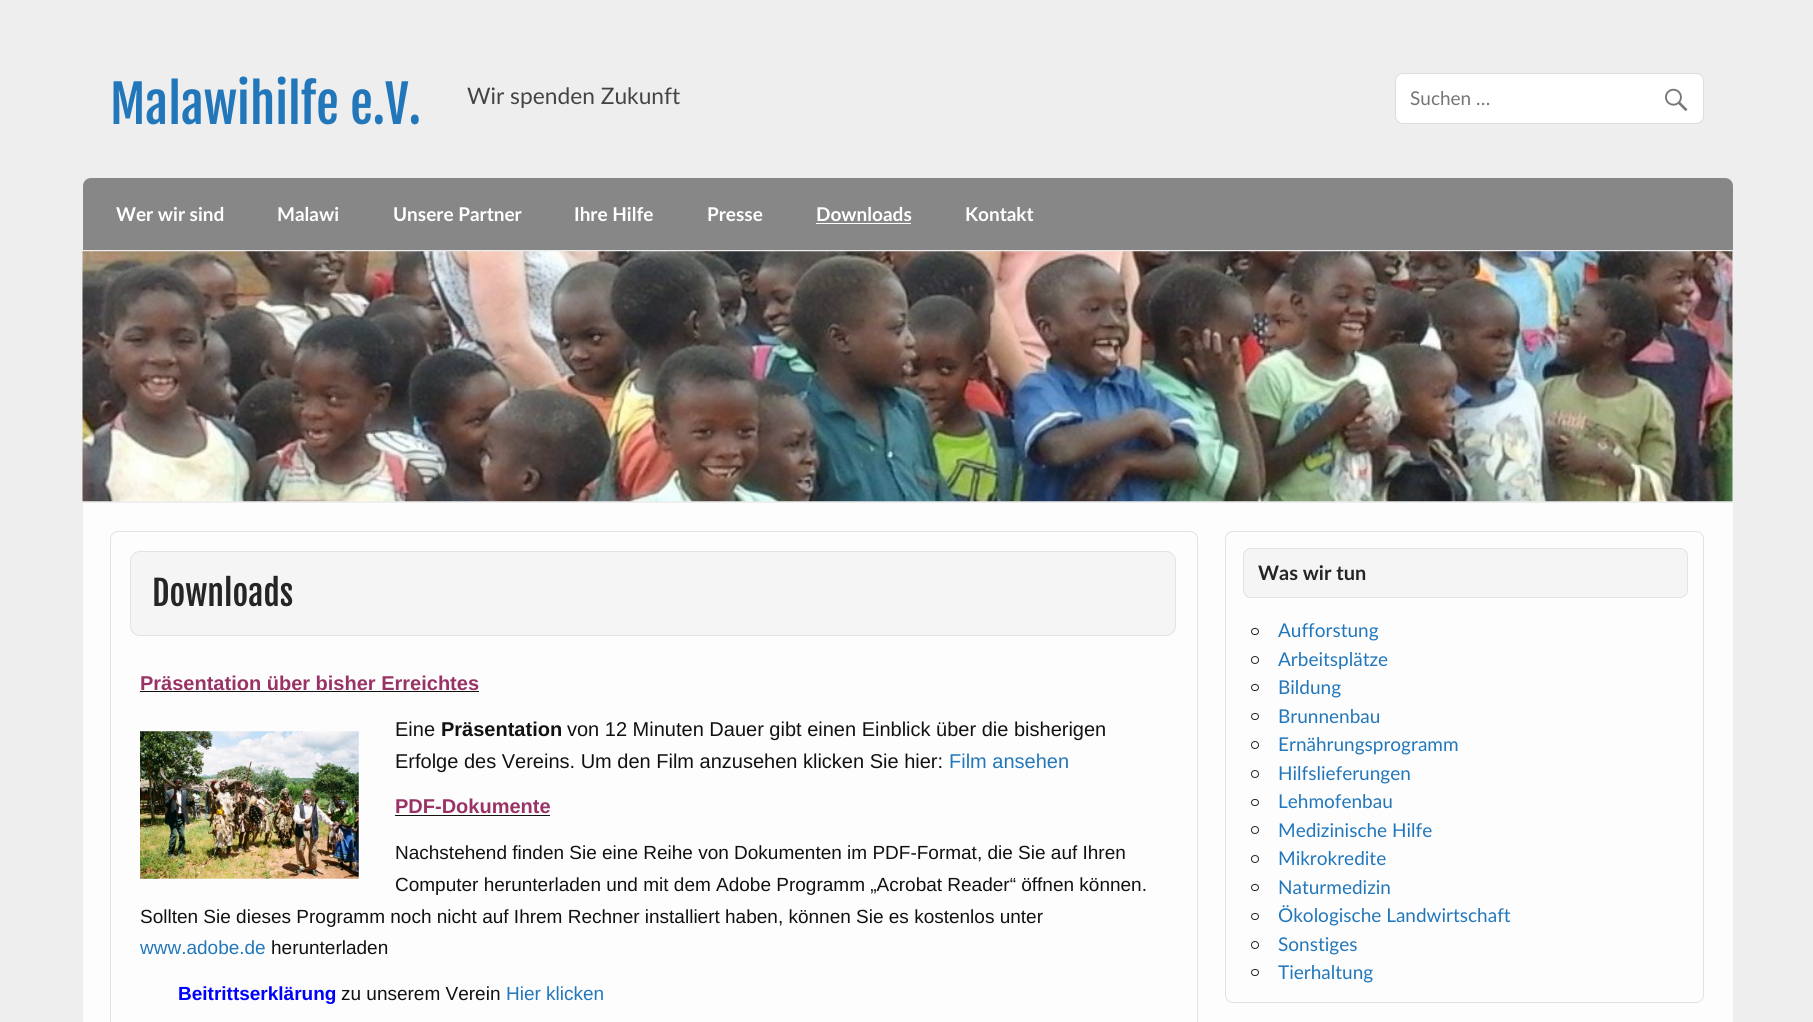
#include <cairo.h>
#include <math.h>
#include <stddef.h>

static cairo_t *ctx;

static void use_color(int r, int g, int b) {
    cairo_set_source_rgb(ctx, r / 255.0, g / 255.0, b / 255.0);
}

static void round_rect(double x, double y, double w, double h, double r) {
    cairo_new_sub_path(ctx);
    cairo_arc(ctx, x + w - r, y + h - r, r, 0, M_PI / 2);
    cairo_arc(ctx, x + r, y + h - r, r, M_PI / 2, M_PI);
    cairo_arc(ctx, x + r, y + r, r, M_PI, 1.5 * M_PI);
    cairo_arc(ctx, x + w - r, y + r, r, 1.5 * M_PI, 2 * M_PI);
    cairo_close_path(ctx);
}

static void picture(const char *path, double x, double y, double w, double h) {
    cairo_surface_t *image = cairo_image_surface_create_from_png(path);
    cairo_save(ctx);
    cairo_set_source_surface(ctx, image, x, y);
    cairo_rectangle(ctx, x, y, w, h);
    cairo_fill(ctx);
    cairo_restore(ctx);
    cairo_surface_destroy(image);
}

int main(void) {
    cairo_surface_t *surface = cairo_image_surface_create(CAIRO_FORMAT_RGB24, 1813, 1022);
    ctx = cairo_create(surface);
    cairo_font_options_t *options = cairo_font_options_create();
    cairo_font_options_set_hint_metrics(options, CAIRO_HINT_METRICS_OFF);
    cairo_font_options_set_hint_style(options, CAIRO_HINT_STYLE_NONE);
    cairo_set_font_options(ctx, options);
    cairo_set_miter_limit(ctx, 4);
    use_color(238, 238, 238);
    cairo_paint(ctx);
    cairo_select_font_face(ctx, "Fjalla One", CAIRO_FONT_SLANT_NORMAL, CAIRO_FONT_WEIGHT_NORMAL);
    cairo_set_font_size(ctx, 51.25);
    use_color(34, 119, 187);
    cairo_move_to(ctx, 110, 124);
    cairo_show_text(ctx, "Malawihilfe e.V.");
    cairo_select_font_face(ctx, "Lato", CAIRO_FONT_SLANT_NORMAL, CAIRO_FONT_WEIGHT_NORMAL);
    cairo_set_font_size(ctx, 22.75);
    use_color(68, 68, 68);
    cairo_move_to(ctx, 467, 104);
    cairo_show_text(ctx, "Wir spenden Zukunft");
    use_color(255, 255, 255);
    round_rect(1395.5, 73.5, 308, 50, 7.5);
    cairo_fill_preserve(ctx);
    use_color(221, 221, 221);
    cairo_set_line_width(ctx, 1);
    cairo_stroke(ctx);
    cairo_set_font_size(ctx, 19);
    use_color(117, 117, 117);
    cairo_move_to(ctx, 1410, 105);
    cairo_show_text(ctx, "Suchen …");
    picture("img1.png", 1665, 88, 23, 24);
    use_color(135, 135, 135);
    cairo_new_path(ctx);
    cairo_move_to(ctx, 91, 178);
    cairo_line_to(ctx, 1725, 178);
    cairo_curve_to(ctx, 1729.5, 178, 1733, 181.5, 1733, 186);
    cairo_line_to(ctx, 1733, 250);
    cairo_line_to(ctx, 83, 250);
    cairo_line_to(ctx, 83, 186);
    cairo_curve_to(ctx, 83, 181.5, 86.5, 178, 91, 178);
    cairo_close_path(ctx);
    cairo_fill(ctx);
    cairo_select_font_face(ctx, "Lato", CAIRO_FONT_SLANT_NORMAL, CAIRO_FONT_WEIGHT_BOLD);
    use_color(255, 255, 255);
    cairo_move_to(ctx, 116, 221);
    cairo_show_text(ctx, "Wer wir sind");
    cairo_move_to(ctx, 277, 221);
    cairo_show_text(ctx, "Malawi");
    cairo_move_to(ctx, 393, 221);
    cairo_show_text(ctx, "Unsere Partner");
    cairo_move_to(ctx, 574, 221);
    cairo_show_text(ctx, "Ihre Hilfe");
    cairo_move_to(ctx, 707, 221);
    cairo_show_text(ctx, "Presse");
    cairo_move_to(ctx, 816, 221);
    cairo_show_text(ctx, "Downloads");
    cairo_rectangle(ctx, 816, 223, 95, 1);
    cairo_fill(ctx);
    cairo_move_to(ctx, 965, 221);
    cairo_show_text(ctx, "Kontakt");
    picture("img2.png", 82, 251, 1651, 251);
    use_color(253, 253, 253);
    cairo_rectangle(ctx, 83, 503, 1650, 519);
    cairo_fill(ctx);
    round_rect(110.5, 531.5, 1087, 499, 7.5);
    use_color(226, 226, 226);
    cairo_stroke(ctx);
    use_color(245, 245, 245);
    round_rect(130.5, 551.5, 1045, 84, 9.5);
    cairo_fill_preserve(ctx);
    use_color(226, 226, 226);
    cairo_stroke(ctx);
    cairo_select_font_face(ctx, "Fjalla One", CAIRO_FONT_SLANT_NORMAL, CAIRO_FONT_WEIGHT_NORMAL);
    cairo_set_font_size(ctx, 34);
    use_color(37, 37, 37);
    cairo_move_to(ctx, 152, 606);
    cairo_show_text(ctx, "Downloads");
    cairo_select_font_face(ctx, "Liberation Sans", CAIRO_FONT_SLANT_NORMAL, CAIRO_FONT_WEIGHT_BOLD);
    cairo_set_font_size(ctx, 20);
    use_color(153, 51, 102);
    cairo_move_to(ctx, 140, 690);
    cairo_show_text(ctx, "Präsentation über bisher Erreichtes");
    use_color(17, 17, 17);
    cairo_rectangle(ctx, 140, 691, 339, 1);
    cairo_fill(ctx);
    picture("img3.png", 140, 731, 219, 148);
    cairo_select_font_face(ctx, "Liberation Sans", CAIRO_FONT_SLANT_NORMAL, CAIRO_FONT_WEIGHT_NORMAL);
    cairo_move_to(ctx, 395, 736);
    cairo_show_text(ctx, "Eine");
    cairo_select_font_face(ctx, "Liberation Sans", CAIRO_FONT_SLANT_NORMAL, CAIRO_FONT_WEIGHT_BOLD);
    cairo_move_to(ctx, 441, 736);
    cairo_show_text(ctx, "Präsentation");
    cairo_select_font_face(ctx, "Liberation Sans", CAIRO_FONT_SLANT_NORMAL, CAIRO_FONT_WEIGHT_NORMAL);
    cairo_move_to(ctx, 567, 736);
    cairo_show_text(ctx, "von 12 Minuten Dauer gibt einen Einblick über die bisherigen");
    cairo_move_to(ctx, 395, 768);
    cairo_show_text(ctx, "Erfolge des Vereins. Um den Film anzusehen klicken Sie hier:");
    use_color(34, 119, 187);
    cairo_move_to(ctx, 949, 768);
    cairo_show_text(ctx, "Film ansehen");
    cairo_select_font_face(ctx, "Liberation Sans", CAIRO_FONT_SLANT_NORMAL, CAIRO_FONT_WEIGHT_BOLD);
    use_color(153, 51, 102);
    cairo_move_to(ctx, 395, 813);
    cairo_show_text(ctx, "PDF-Dokumente");
    use_color(17, 17, 17);
    cairo_rectangle(ctx, 395, 815, 155, 1);
    cairo_fill(ctx);
    cairo_select_font_face(ctx, "Liberation Sans", CAIRO_FONT_SLANT_NORMAL, CAIRO_FONT_WEIGHT_NORMAL);
    cairo_set_font_size(ctx, 19);
    cairo_move_to(ctx, 395, 859);
    cairo_show_text(ctx, "Nachstehend finden Sie eine Reihe von Dokumenten im PDF-Format, die Sie auf Ihren");
    cairo_move_to(ctx, 395, 891);
    cairo_show_text(ctx, "Computer herunterladen und mit dem Adobe Programm „Acrobat Reader“ öffnen können.");
    cairo_move_to(ctx, 140, 923);
    cairo_show_text(ctx, "Sollten Sie dieses Programm noch nicht auf Ihrem Rechner installiert haben, können Sie es kostenlos unter");
    use_color(34, 119, 187);
    cairo_move_to(ctx, 140, 954);
    cairo_show_text(ctx, "www.adobe.de");
    use_color(17, 17, 17);
    cairo_move_to(ctx, 271, 954);
    cairo_show_text(ctx, "herunterladen");
    cairo_select_font_face(ctx, "Liberation Sans", CAIRO_FONT_SLANT_NORMAL, CAIRO_FONT_WEIGHT_BOLD);
    use_color(0, 0, 255);
    cairo_move_to(ctx, 178, 1000);
    cairo_show_text(ctx, "Beitrittserklärung");
    cairo_select_font_face(ctx, "Liberation Sans", CAIRO_FONT_SLANT_NORMAL, CAIRO_FONT_WEIGHT_NORMAL);
    use_color(17, 17, 17);
    cairo_move_to(ctx, 341, 1000);
    cairo_show_text(ctx, "zu unserem Verein");
    use_color(34, 119, 187);
    cairo_move_to(ctx, 506, 1000);
    cairo_show_text(ctx, "Hier klicken");
    round_rect(1225.5, 531.5, 478, 471, 7.5);
    use_color(226, 226, 226);
    cairo_stroke(ctx);
    use_color(245, 245, 245);
    round_rect(1243.5, 548.5, 444, 49, 7.5);
    cairo_fill_preserve(ctx);
    use_color(226, 226, 226);
    cairo_stroke(ctx);
    cairo_select_font_face(ctx, "Lato", CAIRO_FONT_SLANT_NORMAL, CAIRO_FONT_WEIGHT_BOLD);
    cairo_set_font_size(ctx, 20);
    use_color(37, 37, 37);
    cairo_move_to(ctx, 1258, 580);
    cairo_show_text(ctx, "Was wir tun");
    round_rect(1251.5, 628.5, 7, 6, 3);
    cairo_stroke(ctx);
    cairo_select_font_face(ctx, "Lato", CAIRO_FONT_SLANT_NORMAL, CAIRO_FONT_WEIGHT_NORMAL);
    cairo_set_font_size(ctx, 19);
    use_color(34, 119, 187);
    cairo_move_to(ctx, 1278, 637);
    cairo_show_text(ctx, "Aufforstung");
    cairo_new_path(ctx);
    cairo_arc(ctx, 1255, 660, 3.5, 0, 2 * M_PI);
    use_color(37, 37, 37);
    cairo_stroke(ctx);
    use_color(34, 119, 187);
    cairo_move_to(ctx, 1278, 666);
    cairo_show_text(ctx, "Arbeitsplätze");
    round_rect(1251.5, 684.5, 7, 6, 3);
    use_color(37, 37, 37);
    cairo_stroke(ctx);
    use_color(34, 119, 187);
    cairo_move_to(ctx, 1278, 694);
    cairo_show_text(ctx, "Bildung");
    round_rect(1251.5, 713.5, 7, 6, 3);
    use_color(37, 37, 37);
    cairo_stroke(ctx);
    use_color(34, 119, 187);
    cairo_move_to(ctx, 1278, 723);
    cairo_show_text(ctx, "Brunnenbau");
    cairo_new_path(ctx);
    cairo_arc(ctx, 1255, 745, 3.5, 0, 2 * M_PI);
    use_color(37, 37, 37);
    cairo_stroke(ctx);
    use_color(34, 119, 187);
    cairo_move_to(ctx, 1278, 751);
    cairo_show_text(ctx, "Ernährungsprogramm");
    cairo_new_path(ctx);
    cairo_arc(ctx, 1255, 774, 3.5, 0, 2 * M_PI);
    use_color(37, 37, 37);
    cairo_stroke(ctx);
    use_color(34, 119, 187);
    cairo_move_to(ctx, 1278, 780);
    cairo_show_text(ctx, "Hilfslieferungen");
    round_rect(1251.5, 799.5, 7, 6, 3);
    use_color(37, 37, 37);
    cairo_stroke(ctx);
    use_color(34, 119, 187);
    cairo_move_to(ctx, 1278, 808);
    cairo_show_text(ctx, "Lehmofenbau");
    cairo_new_path(ctx);
    cairo_arc(ctx, 1255, 830, 3.5, 0, 2 * M_PI);
    use_color(37, 37, 37);
    cairo_stroke(ctx);
    use_color(34, 119, 187);
    cairo_move_to(ctx, 1278, 837);
    cairo_show_text(ctx, "Medizinische Hilfe");
    cairo_new_path(ctx);
    cairo_arc(ctx, 1255, 859, 3.5, 0, 2 * M_PI);
    use_color(37, 37, 37);
    cairo_stroke(ctx);
    use_color(34, 119, 187);
    cairo_move_to(ctx, 1278, 865);
    cairo_show_text(ctx, "Mikrokredite");
    round_rect(1251.5, 884.5, 7, 6, 3);
    use_color(37, 37, 37);
    cairo_stroke(ctx);
    use_color(34, 119, 187);
    cairo_move_to(ctx, 1278, 894);
    cairo_show_text(ctx, "Naturmedizin");
    round_rect(1251.5, 913.5, 7, 6, 3);
    use_color(37, 37, 37);
    cairo_stroke(ctx);
    use_color(34, 119, 187);
    cairo_move_to(ctx, 1278, 922);
    cairo_show_text(ctx, "Ökologische Landwirtschaft");
    cairo_new_path(ctx);
    cairo_arc(ctx, 1255, 945, 3.5, 0, 2 * M_PI);
    use_color(37, 37, 37);
    cairo_stroke(ctx);
    use_color(34, 119, 187);
    cairo_move_to(ctx, 1278, 951);
    cairo_show_text(ctx, "Sonstiges");
    round_rect(1251.5, 969.5, 7, 6, 3);
    use_color(37, 37, 37);
    cairo_stroke(ctx);
    use_color(34, 119, 187);
    cairo_move_to(ctx, 1278, 979);
    cairo_show_text(ctx, "Tierhaltung");
    cairo_surface_write_to_png(surface, "result.png");
    cairo_font_options_destroy(options);
    cairo_destroy(ctx);
    cairo_surface_destroy(surface);
    return 0;
}
